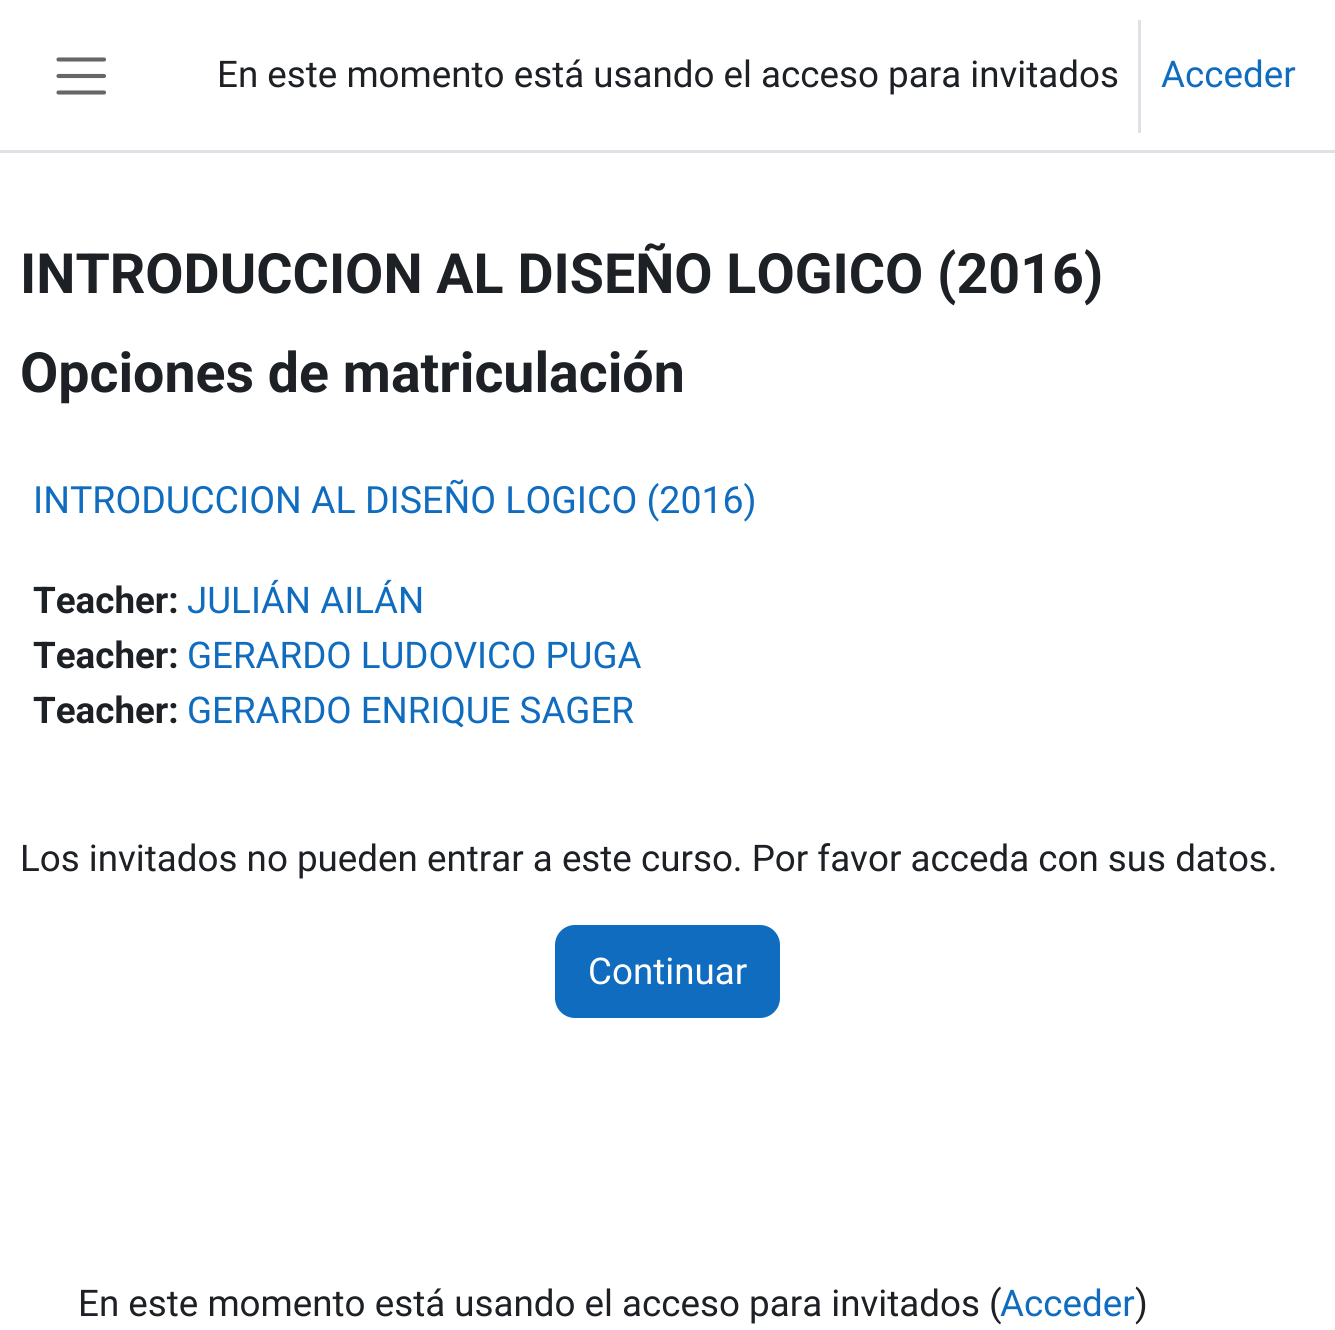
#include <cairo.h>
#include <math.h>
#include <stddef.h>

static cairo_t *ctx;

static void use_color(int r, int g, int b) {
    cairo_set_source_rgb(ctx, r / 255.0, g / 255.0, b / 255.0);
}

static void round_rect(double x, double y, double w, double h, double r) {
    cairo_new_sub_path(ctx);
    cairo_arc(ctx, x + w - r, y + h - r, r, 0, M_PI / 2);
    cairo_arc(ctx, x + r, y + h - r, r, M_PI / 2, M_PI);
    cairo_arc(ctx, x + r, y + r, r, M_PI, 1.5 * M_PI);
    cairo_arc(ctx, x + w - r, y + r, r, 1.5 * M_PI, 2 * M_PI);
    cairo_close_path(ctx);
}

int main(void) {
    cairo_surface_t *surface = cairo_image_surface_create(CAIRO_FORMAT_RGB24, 1335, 1330);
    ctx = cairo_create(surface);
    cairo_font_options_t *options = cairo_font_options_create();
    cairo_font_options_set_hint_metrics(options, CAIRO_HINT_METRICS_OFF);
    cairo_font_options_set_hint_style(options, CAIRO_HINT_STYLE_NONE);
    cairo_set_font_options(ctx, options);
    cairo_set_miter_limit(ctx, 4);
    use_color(255, 255, 255);
    cairo_paint(ctx);
    use_color(222, 226, 230);
    cairo_rectangle(ctx, 0, 150, 1335, 3);
    cairo_fill(ctx);
    cairo_new_path(ctx);
    cairo_move_to(ctx, 58.5, 59.5);
    cairo_line_to(ctx, 104, 59.5);
    cairo_move_to(ctx, 58.5, 76);
    cairo_line_to(ctx, 104, 76);
    cairo_move_to(ctx, 58.5, 92.5);
    cairo_line_to(ctx, 104, 92.5);
    use_color(102, 102, 102);
    cairo_set_line_width(ctx, 4.1);
    cairo_set_line_cap(ctx, CAIRO_LINE_CAP_ROUND);
    cairo_stroke(ctx);
    cairo_select_font_face(ctx, "Roboto", CAIRO_FONT_SLANT_NORMAL, CAIRO_FONT_WEIGHT_NORMAL);
    cairo_set_font_size(ctx, 36.75);
    use_color(29, 33, 37);
    cairo_move_to(ctx, 217, 87);
    cairo_show_text(ctx, "En este momento está usando el acceso para invitados");
    use_color(222, 226, 230);
    cairo_rectangle(ctx, 1138, 20, 3, 113);
    cairo_fill(ctx);
    use_color(15, 108, 191);
    cairo_move_to(ctx, 1161, 87);
    cairo_show_text(ctx, "Acceder");
    cairo_select_font_face(ctx, "Roboto", CAIRO_FONT_SLANT_NORMAL, CAIRO_FONT_WEIGHT_BOLD);
    cairo_set_font_size(ctx, 55.5);
    use_color(29, 33, 37);
    cairo_move_to(ctx, 20, 293);
    cairo_show_text(ctx, "INTRODUCCION AL DISEÑO LOGICO (2016)");
    cairo_move_to(ctx, 20, 392);
    cairo_show_text(ctx, "Opciones de matriculación");
    cairo_select_font_face(ctx, "Roboto", CAIRO_FONT_SLANT_NORMAL, CAIRO_FONT_WEIGHT_NORMAL);
    cairo_set_font_size(ctx, 37.5);
    use_color(15, 108, 191);
    cairo_move_to(ctx, 33, 513);
    cairo_show_text(ctx, "INTRODUCCION AL DISEÑO LOGICO (2016)");
    cairo_select_font_face(ctx, "Roboto", CAIRO_FONT_SLANT_NORMAL, CAIRO_FONT_WEIGHT_BOLD);
    cairo_set_font_size(ctx, 36.75);
    use_color(29, 33, 37);
    cairo_move_to(ctx, 33, 613);
    cairo_show_text(ctx, "Teacher:");
    cairo_select_font_face(ctx, "Roboto", CAIRO_FONT_SLANT_NORMAL, CAIRO_FONT_WEIGHT_NORMAL);
    use_color(15, 108, 191);
    cairo_move_to(ctx, 187, 613);
    cairo_show_text(ctx, "JULIÁN AILÁN");
    cairo_select_font_face(ctx, "Roboto", CAIRO_FONT_SLANT_NORMAL, CAIRO_FONT_WEIGHT_BOLD);
    use_color(29, 33, 37);
    cairo_move_to(ctx, 33, 668);
    cairo_show_text(ctx, "Teacher:");
    cairo_select_font_face(ctx, "Roboto", CAIRO_FONT_SLANT_NORMAL, CAIRO_FONT_WEIGHT_NORMAL);
    use_color(15, 108, 191);
    cairo_move_to(ctx, 187, 668);
    cairo_show_text(ctx, "GERARDO LUDOVICO PUGA");
    cairo_select_font_face(ctx, "Roboto", CAIRO_FONT_SLANT_NORMAL, CAIRO_FONT_WEIGHT_BOLD);
    use_color(29, 33, 37);
    cairo_move_to(ctx, 33, 723);
    cairo_show_text(ctx, "Teacher:");
    cairo_select_font_face(ctx, "Roboto", CAIRO_FONT_SLANT_NORMAL, CAIRO_FONT_WEIGHT_NORMAL);
    use_color(15, 108, 191);
    cairo_move_to(ctx, 187, 723);
    cairo_show_text(ctx, "GERARDO ENRIQUE SAGER");
    use_color(29, 33, 37);
    cairo_move_to(ctx, 20, 871);
    cairo_show_text(ctx, "Los invitados no pueden entrar a este curso. Por favor acceda con sus datos.");
    use_color(15, 108, 191);
    round_rect(556.5, 926.5, 222, 90, 18.5);
    cairo_fill_preserve(ctx);
    cairo_set_line_width(ctx, 3);
    cairo_set_line_cap(ctx, CAIRO_LINE_CAP_BUTT);
    cairo_stroke(ctx);
    use_color(255, 255, 255);
    cairo_move_to(ctx, 588, 984);
    cairo_show_text(ctx, "Continuar");
    use_color(29, 33, 37);
    cairo_move_to(ctx, 78, 1316);
    cairo_show_text(ctx, "En este momento está usando el acceso para invitados (");
    use_color(15, 108, 191);
    cairo_move_to(ctx, 1000, 1316);
    cairo_show_text(ctx, "Acceder");
    use_color(29, 33, 37);
    cairo_move_to(ctx, 1135, 1316);
    cairo_show_text(ctx, ")");
    cairo_surface_write_to_png(surface, "result.png");
    cairo_font_options_destroy(options);
    cairo_destroy(ctx);
    cairo_surface_destroy(surface);
    return 0;
}
